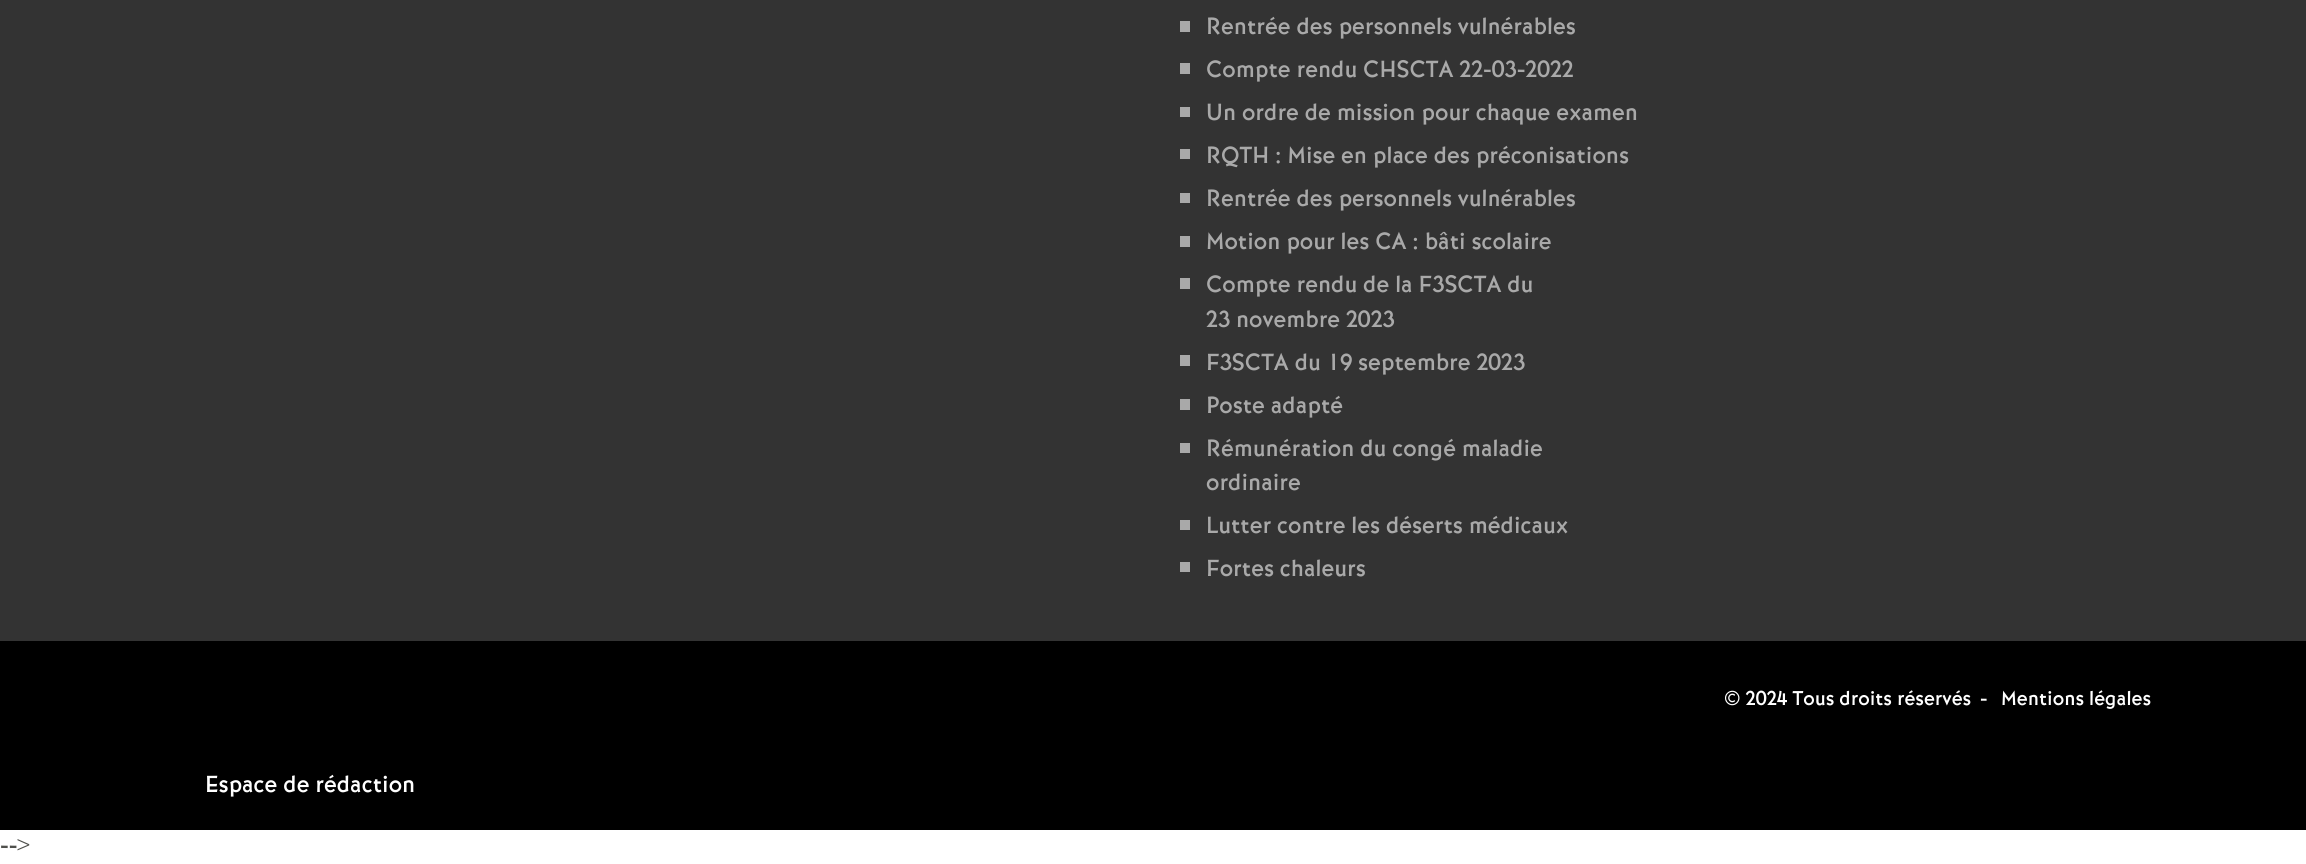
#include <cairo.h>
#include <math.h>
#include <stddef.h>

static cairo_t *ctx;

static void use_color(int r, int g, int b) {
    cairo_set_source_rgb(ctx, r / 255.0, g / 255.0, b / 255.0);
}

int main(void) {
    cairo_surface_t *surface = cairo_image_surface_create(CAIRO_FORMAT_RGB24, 2306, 864);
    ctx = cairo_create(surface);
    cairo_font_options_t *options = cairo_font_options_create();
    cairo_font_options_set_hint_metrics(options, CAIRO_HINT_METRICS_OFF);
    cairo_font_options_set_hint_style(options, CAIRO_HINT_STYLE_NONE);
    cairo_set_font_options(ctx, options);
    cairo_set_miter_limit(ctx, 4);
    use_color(255, 255, 255);
    cairo_paint(ctx);
    use_color(51, 51, 51);
    cairo_rectangle(ctx, 0, 0, 2306, 641);
    cairo_fill(ctx);
    use_color(169, 169, 169);
    cairo_rectangle(ctx, 1180, 21, 10, 11);
    cairo_fill(ctx);
    cairo_select_font_face(ctx, "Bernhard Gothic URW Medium", CAIRO_FONT_SLANT_NORMAL, CAIRO_FONT_WEIGHT_NORMAL);
    cairo_set_font_size(ctx, 24.5);
    cairo_move_to(ctx, 1206, 34);
    cairo_show_text(ctx, "Rentrée des personnels vulnérables");
    cairo_rectangle(ctx, 1180, 63, 10, 11);
    cairo_fill(ctx);
    cairo_move_to(ctx, 1206, 77);
    cairo_show_text(ctx, "Compte rendu CHSCTA 22-03-2022");
    cairo_rectangle(ctx, 1180, 107, 10, 10);
    cairo_fill(ctx);
    cairo_move_to(ctx, 1206, 120);
    cairo_show_text(ctx, "Un ordre de mission pour chaque examen");
    cairo_rectangle(ctx, 1180, 149, 10, 10);
    cairo_fill(ctx);
    cairo_move_to(ctx, 1206, 163);
    cairo_show_text(ctx, "RQTH : Mise en place des préconisations");
    cairo_rectangle(ctx, 1180, 193, 10, 10);
    cairo_fill(ctx);
    cairo_move_to(ctx, 1206, 206);
    cairo_show_text(ctx, "Rentrée des personnels vulnérables");
    cairo_rectangle(ctx, 1180, 236, 10, 11);
    cairo_fill(ctx);
    cairo_move_to(ctx, 1206, 249);
    cairo_show_text(ctx, "Motion pour les CA : bâti scolaire");
    cairo_rectangle(ctx, 1180, 278, 10, 11);
    cairo_fill(ctx);
    cairo_move_to(ctx, 1206, 292);
    cairo_show_text(ctx, "Compte rendu de la F3SCTA du");
    cairo_move_to(ctx, 1206, 327);
    cairo_show_text(ctx, "23 novembre 2023");
    cairo_rectangle(ctx, 1180, 355, 10, 11);
    cairo_fill(ctx);
    cairo_move_to(ctx, 1206, 370);
    cairo_show_text(ctx, "F3SCTA du 19 septembre 2023");
    cairo_rectangle(ctx, 1180, 399, 10, 11);
    cairo_fill(ctx);
    cairo_move_to(ctx, 1206, 413);
    cairo_show_text(ctx, "Poste adapté");
    cairo_rectangle(ctx, 1180, 443, 10, 10);
    cairo_fill(ctx);
    cairo_move_to(ctx, 1206, 456);
    cairo_show_text(ctx, "Rémunération du congé maladie");
    cairo_move_to(ctx, 1206, 490);
    cairo_show_text(ctx, "ordinaire");
    cairo_rectangle(ctx, 1180, 520, 10, 10);
    cairo_fill(ctx);
    cairo_move_to(ctx, 1206, 533);
    cairo_show_text(ctx, "Lutter contre les déserts médicaux");
    cairo_rectangle(ctx, 1180, 562, 10, 10);
    cairo_fill(ctx);
    cairo_move_to(ctx, 1206, 576);
    cairo_show_text(ctx, "Fortes chaleurs");
    use_color(0, 0, 0);
    cairo_rectangle(ctx, 0, 641, 2306, 189);
    cairo_fill(ctx);
    cairo_set_font_size(ctx, 21);
    use_color(255, 255, 255);
    cairo_move_to(ctx, 1724, 705);
    cairo_show_text(ctx, "© 2024 Tous droits réservés");
    cairo_move_to(ctx, 1980, 705);
    cairo_show_text(ctx, "-");
    cairo_move_to(ctx, 2001, 705);
    cairo_show_text(ctx, "Mentions légales");
    cairo_set_font_size(ctx, 24.5);
    cairo_move_to(ctx, 205, 792);
    cairo_show_text(ctx, "Espace de rédaction");
    use_color(79, 80, 76);
    cairo_move_to(ctx, 0, 853);
    cairo_show_text(ctx, "-->");
    cairo_surface_write_to_png(surface, "result.png");
    cairo_font_options_destroy(options);
    cairo_destroy(ctx);
    cairo_surface_destroy(surface);
    return 0;
}
